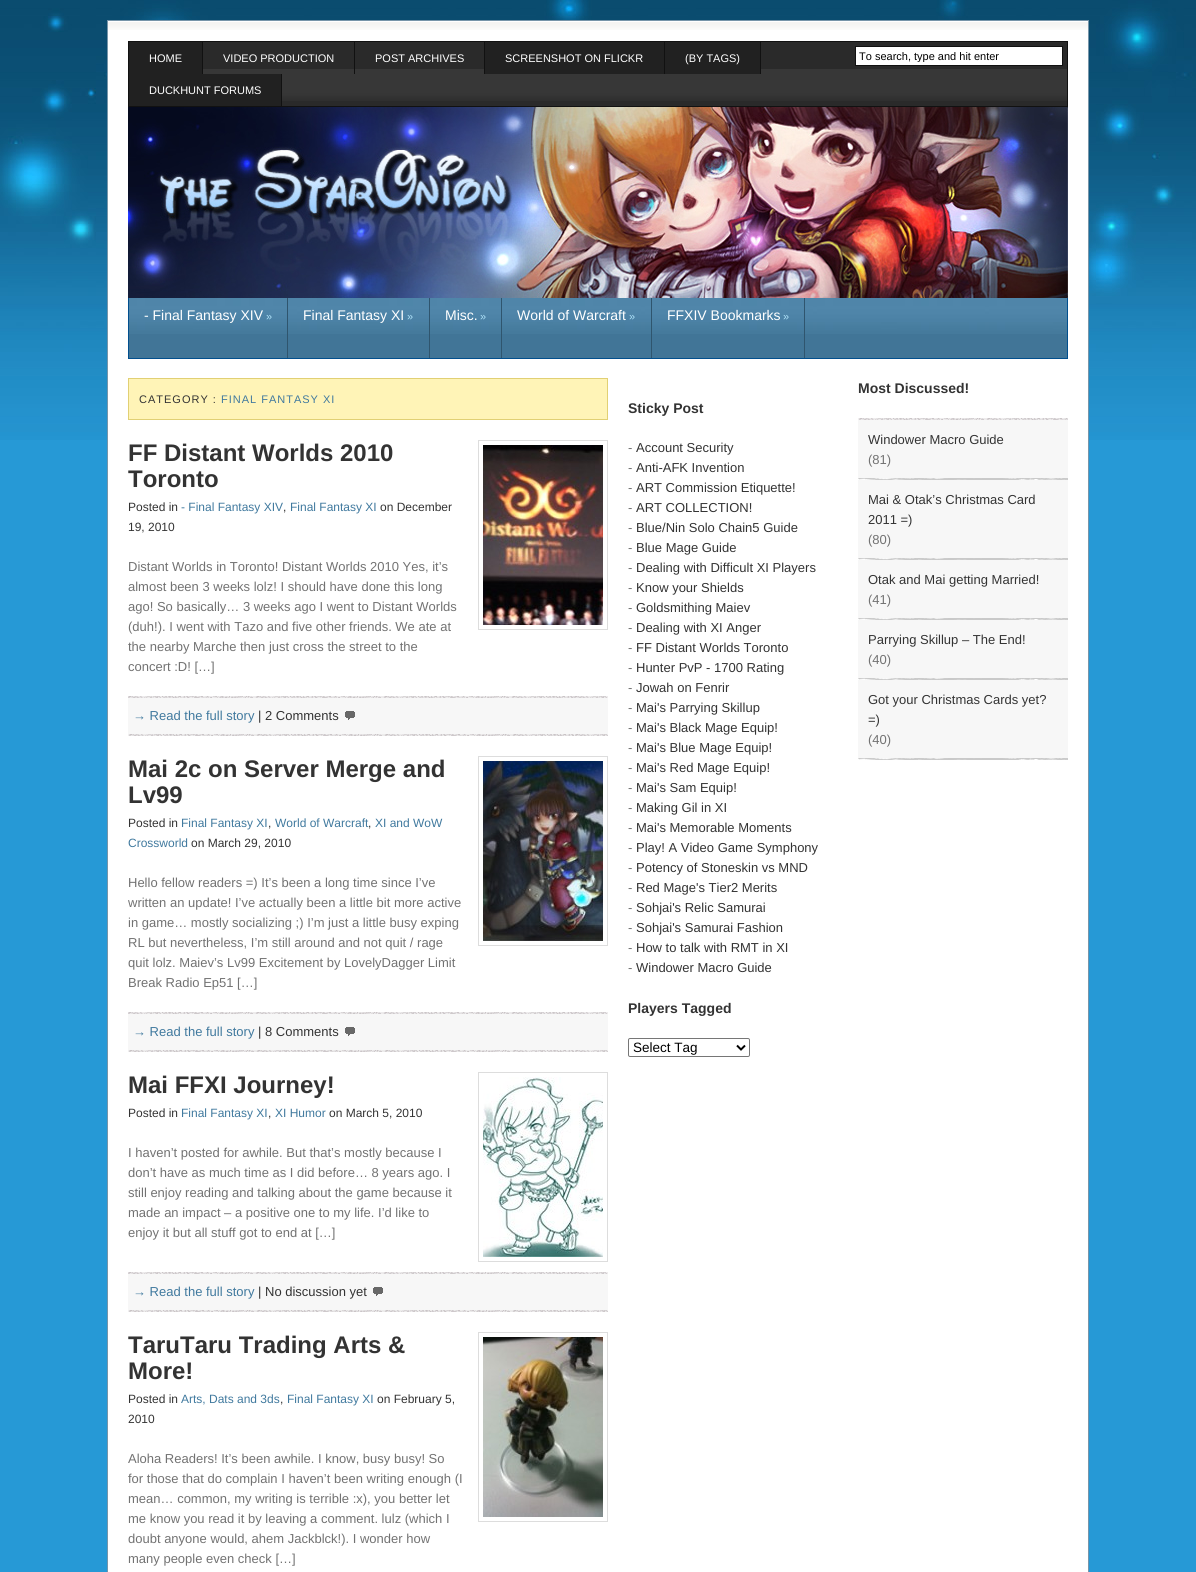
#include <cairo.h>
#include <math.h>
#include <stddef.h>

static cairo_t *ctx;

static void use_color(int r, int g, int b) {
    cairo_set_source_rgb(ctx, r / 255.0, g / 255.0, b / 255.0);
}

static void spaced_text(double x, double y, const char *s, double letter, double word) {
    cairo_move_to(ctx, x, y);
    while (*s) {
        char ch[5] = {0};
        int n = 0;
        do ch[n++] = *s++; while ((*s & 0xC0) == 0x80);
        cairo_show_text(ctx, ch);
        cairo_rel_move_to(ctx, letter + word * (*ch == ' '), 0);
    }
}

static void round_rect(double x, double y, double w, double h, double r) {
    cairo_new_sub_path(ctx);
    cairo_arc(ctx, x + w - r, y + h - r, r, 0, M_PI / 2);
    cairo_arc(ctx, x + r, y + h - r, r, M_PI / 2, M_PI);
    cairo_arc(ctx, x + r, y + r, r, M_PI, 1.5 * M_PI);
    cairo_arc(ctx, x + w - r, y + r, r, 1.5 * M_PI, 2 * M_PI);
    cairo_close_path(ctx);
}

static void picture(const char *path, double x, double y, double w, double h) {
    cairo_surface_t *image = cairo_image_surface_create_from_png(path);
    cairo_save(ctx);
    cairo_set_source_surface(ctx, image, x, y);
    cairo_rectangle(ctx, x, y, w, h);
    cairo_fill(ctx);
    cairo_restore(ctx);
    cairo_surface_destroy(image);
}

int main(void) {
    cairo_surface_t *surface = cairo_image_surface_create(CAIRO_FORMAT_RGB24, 1196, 1572);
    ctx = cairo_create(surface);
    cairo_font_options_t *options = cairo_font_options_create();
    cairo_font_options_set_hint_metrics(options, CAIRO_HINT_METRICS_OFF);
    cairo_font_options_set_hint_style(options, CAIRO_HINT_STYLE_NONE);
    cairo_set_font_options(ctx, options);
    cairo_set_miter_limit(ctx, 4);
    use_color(38, 153, 214);
    cairo_paint(ctx);
    picture("img1.png", 0, 0, 1196, 440);
    use_color(255, 255, 255);
    cairo_rectangle(ctx, 108, 21, 980, 1551);
    cairo_fill(ctx);
    picture("img2.png", 108, 22, 980, 8);
    cairo_rectangle(ctx, 107.5, 20.5, 981, 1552);
    use_color(119, 149, 169);
    cairo_set_line_width(ctx, 1);
    cairo_stroke(ctx);
    use_color(42, 42, 42);
    cairo_rectangle(ctx, 203, 42, 864, 64);
    cairo_fill(ctx);
    picture("img3.png", 203, 69, 864, 32);
    cairo_rectangle(ctx, 128.5, 41.5, 939, 65);
    use_color(17, 17, 17);
    cairo_stroke(ctx);
    use_color(33, 33, 33);
    cairo_rectangle(ctx, 129, 42, 73, 32);
    cairo_fill(ctx);
    use_color(17, 17, 17);
    cairo_rectangle(ctx, 202, 42, 1, 32);
    cairo_fill(ctx);
    cairo_select_font_face(ctx, "Liberation Sans", CAIRO_FONT_SLANT_NORMAL, CAIRO_FONT_WEIGHT_NORMAL);
    cairo_set_font_size(ctx, 11);
    use_color(255, 255, 255);
    cairo_move_to(ctx, 149, 62);
    cairo_show_text(ctx, "HOME");
    use_color(17, 17, 17);
    cairo_rectangle(ctx, 354, 42, 1, 32);
    cairo_fill(ctx);
    use_color(255, 255, 255);
    cairo_move_to(ctx, 223, 62);
    cairo_show_text(ctx, "VIDEO PRODUCTION");
    use_color(17, 17, 17);
    cairo_rectangle(ctx, 484, 42, 1, 32);
    cairo_fill(ctx);
    use_color(255, 255, 255);
    cairo_move_to(ctx, 375, 62);
    cairo_show_text(ctx, "POST ARCHIVES");
    use_color(33, 33, 33);
    cairo_rectangle(ctx, 485, 42, 179, 32);
    cairo_fill(ctx);
    use_color(17, 17, 17);
    cairo_rectangle(ctx, 664, 42, 1, 32);
    cairo_fill(ctx);
    use_color(255, 255, 255);
    cairo_move_to(ctx, 505, 62);
    cairo_show_text(ctx, "SCREENSHOT ON FLICKR");
    use_color(33, 33, 33);
    cairo_rectangle(ctx, 665, 42, 95, 32);
    cairo_fill(ctx);
    use_color(17, 17, 17);
    cairo_rectangle(ctx, 760, 42, 1, 32);
    cairo_fill(ctx);
    use_color(255, 255, 255);
    cairo_move_to(ctx, 685, 62);
    cairo_show_text(ctx, "(BY TAGS)");
    use_color(33, 33, 33);
    cairo_rectangle(ctx, 129, 74, 152, 32);
    cairo_fill(ctx);
    use_color(17, 17, 17);
    cairo_rectangle(ctx, 281, 74, 1, 32);
    cairo_fill(ctx);
    use_color(255, 255, 255);
    cairo_move_to(ctx, 149, 94);
    cairo_show_text(ctx, "DUCKHUNT FORUMS");
    cairo_rectangle(ctx, 855.5, 46.5, 207, 19);
    cairo_fill_preserve(ctx);
    use_color(17, 17, 17);
    cairo_stroke(ctx);
    cairo_save(ctx);
    cairo_rectangle(ctx, 859, 50, 200, 12);
    cairo_clip(ctx);
    use_color(0, 0, 0);
    cairo_move_to(ctx, 859, 60);
    cairo_show_text(ctx, "To search, type and hit enter");
    cairo_restore(ctx);
    picture("img4.png", 128, 107, 940, 191);
    use_color(65, 117, 151);
    cairo_rectangle(ctx, 129, 334, 938, 24);
    cairo_fill(ctx);
    picture("img5.png", 129, 298, 938, 36);
    use_color(1, 79, 142);
    cairo_rectangle(ctx, 1067, 298, 1, 61);
    cairo_fill(ctx);
    cairo_rectangle(ctx, 128, 358, 940, 1);
    cairo_fill(ctx);
    cairo_rectangle(ctx, 128, 298, 1, 61);
    cairo_fill(ctx);
    use_color(47, 85, 110);
    cairo_rectangle(ctx, 287, 298, 1, 60);
    cairo_fill(ctx);
    cairo_set_font_size(ctx, 14);
    use_color(255, 255, 255);
    cairo_move_to(ctx, 144, 320);
    cairo_show_text(ctx, "- Final Fantasy XIV");
    cairo_set_font_size(ctx, 11);
    use_color(174, 225, 247);
    cairo_move_to(ctx, 266, 320);
    cairo_show_text(ctx, "»");
    use_color(47, 85, 110);
    cairo_rectangle(ctx, 429, 298, 1, 60);
    cairo_fill(ctx);
    cairo_set_font_size(ctx, 14);
    use_color(255, 255, 255);
    cairo_move_to(ctx, 303, 320);
    cairo_show_text(ctx, "Final Fantasy XI");
    cairo_set_font_size(ctx, 11);
    use_color(174, 225, 247);
    cairo_move_to(ctx, 407, 320);
    cairo_show_text(ctx, "»");
    use_color(47, 85, 110);
    cairo_rectangle(ctx, 501, 298, 1, 60);
    cairo_fill(ctx);
    cairo_set_font_size(ctx, 14);
    use_color(255, 255, 255);
    cairo_move_to(ctx, 445, 320);
    cairo_show_text(ctx, "Misc.");
    cairo_set_font_size(ctx, 11);
    use_color(174, 225, 247);
    cairo_move_to(ctx, 480, 320);
    cairo_show_text(ctx, "»");
    use_color(47, 85, 110);
    cairo_rectangle(ctx, 651, 298, 1, 60);
    cairo_fill(ctx);
    cairo_set_font_size(ctx, 14);
    use_color(255, 255, 255);
    cairo_move_to(ctx, 517, 320);
    cairo_show_text(ctx, "World of Warcraft");
    cairo_set_font_size(ctx, 11);
    use_color(174, 225, 247);
    cairo_move_to(ctx, 629, 320);
    cairo_show_text(ctx, "»");
    use_color(47, 85, 110);
    cairo_rectangle(ctx, 804, 298, 1, 60);
    cairo_fill(ctx);
    cairo_set_font_size(ctx, 14);
    use_color(255, 255, 255);
    cairo_move_to(ctx, 667, 320);
    cairo_show_text(ctx, "FFXIV Bookmarks");
    cairo_set_font_size(ctx, 11);
    use_color(174, 225, 247);
    cairo_move_to(ctx, 783, 320);
    cairo_show_text(ctx, "»");
    use_color(255, 244, 183);
    cairo_rectangle(ctx, 128.5, 378.5, 479, 41);
    cairo_fill_preserve(ctx);
    use_color(225, 208, 116);
    cairo_stroke(ctx);
    use_color(51, 51, 51);
    spaced_text(139, 403, "CATEGORY :", 1, 0);
    use_color(64, 121, 158);
    spaced_text(221, 403, "FINAL FANTASY XI", 1, 0);
    cairo_select_font_face(ctx, "Liberation Sans", CAIRO_FONT_SLANT_NORMAL, CAIRO_FONT_WEIGHT_BOLD);
    cairo_set_font_size(ctx, 24);
    use_color(51, 51, 51);
    cairo_move_to(ctx, 128, 461);
    cairo_show_text(ctx, "FF Distant Worlds 2010");
    cairo_move_to(ctx, 128, 487);
    cairo_show_text(ctx, "Toronto");
    cairo_rectangle(ctx, 478.5, 440.5, 129, 189);
    use_color(221, 221, 221);
    cairo_stroke(ctx);
    picture("img6.png", 483, 445, 120, 180);
    cairo_select_font_face(ctx, "Liberation Sans", CAIRO_FONT_SLANT_NORMAL, CAIRO_FONT_WEIGHT_NORMAL);
    cairo_set_font_size(ctx, 12);
    use_color(51, 51, 51);
    cairo_move_to(ctx, 128, 511);
    cairo_show_text(ctx, "Posted in");
    use_color(64, 121, 158);
    cairo_move_to(ctx, 181, 511);
    cairo_show_text(ctx, "- Final Fantasy XIV");
    use_color(51, 51, 51);
    cairo_move_to(ctx, 283, 511);
    cairo_show_text(ctx, ",");
    use_color(64, 121, 158);
    cairo_move_to(ctx, 290, 511);
    cairo_show_text(ctx, "Final Fantasy XI");
    use_color(51, 51, 51);
    cairo_move_to(ctx, 380, 511);
    cairo_show_text(ctx, "on December");
    cairo_move_to(ctx, 128, 531);
    cairo_show_text(ctx, "19, 2010");
    cairo_set_font_size(ctx, 13);
    use_color(114, 114, 114);
    cairo_move_to(ctx, 128, 571);
    cairo_show_text(ctx, "Distant Worlds in Toronto! Distant Worlds 2010 Yes, it’s");
    cairo_move_to(ctx, 128, 591);
    cairo_show_text(ctx, "almost been 3 weeks lolz! I should have done this long");
    cairo_move_to(ctx, 128, 611);
    cairo_show_text(ctx, "ago! So basically… 3 weeks ago I went to Distant Worlds");
    cairo_move_to(ctx, 128, 631);
    cairo_show_text(ctx, "(duh!). I went with Tazo and five other friends. We ate at");
    cairo_move_to(ctx, 128, 651);
    cairo_show_text(ctx, "the nearby Marche then just cross the street to the");
    cairo_move_to(ctx, 128, 671);
    cairo_show_text(ctx, "concert :D! […]");
    picture("img7.png", 128, 696, 480, 40);
    use_color(64, 121, 158);
    cairo_move_to(ctx, 133, 720);
    cairo_show_text(ctx, "→ Read the full story");
    use_color(51, 51, 51);
    cairo_move_to(ctx, 258, 720);
    cairo_show_text(ctx, "| 2 Comments");
    picture("img8.png", 345, 711, 10, 9);
    cairo_select_font_face(ctx, "Liberation Sans", CAIRO_FONT_SLANT_NORMAL, CAIRO_FONT_WEIGHT_BOLD);
    cairo_set_font_size(ctx, 24);
    cairo_move_to(ctx, 128, 777);
    cairo_show_text(ctx, "Mai 2c on Server Merge and");
    cairo_move_to(ctx, 128, 803);
    cairo_show_text(ctx, "Lv99");
    cairo_rectangle(ctx, 478.5, 756.5, 129, 189);
    use_color(221, 221, 221);
    cairo_stroke(ctx);
    picture("img9.png", 483, 761, 120, 180);
    cairo_select_font_face(ctx, "Liberation Sans", CAIRO_FONT_SLANT_NORMAL, CAIRO_FONT_WEIGHT_NORMAL);
    cairo_set_font_size(ctx, 12);
    use_color(51, 51, 51);
    cairo_move_to(ctx, 128, 827);
    cairo_show_text(ctx, "Posted in");
    use_color(64, 121, 158);
    cairo_move_to(ctx, 181, 827);
    cairo_show_text(ctx, "Final Fantasy XI");
    use_color(51, 51, 51);
    cairo_move_to(ctx, 268, 827);
    cairo_show_text(ctx, ",");
    use_color(64, 121, 158);
    cairo_move_to(ctx, 275, 827);
    cairo_show_text(ctx, "World of Warcraft");
    use_color(51, 51, 51);
    cairo_move_to(ctx, 368, 827);
    cairo_show_text(ctx, ",");
    use_color(64, 121, 158);
    cairo_move_to(ctx, 375, 827);
    cairo_show_text(ctx, "XI and WoW");
    cairo_move_to(ctx, 128, 847);
    cairo_show_text(ctx, "Crossworld");
    use_color(51, 51, 51);
    cairo_move_to(ctx, 191, 847);
    cairo_show_text(ctx, "on March 29, 2010");
    cairo_set_font_size(ctx, 13);
    use_color(114, 114, 114);
    cairo_move_to(ctx, 128, 887);
    cairo_show_text(ctx, "Hello fellow readers =) It’s been a long time since I’ve");
    cairo_move_to(ctx, 128, 907);
    cairo_show_text(ctx, "written an update! I’ve actually been a little bit more active");
    cairo_move_to(ctx, 128, 927);
    cairo_show_text(ctx, "in game… mostly socializing ;) I’m just a little busy exping");
    cairo_move_to(ctx, 128, 947);
    cairo_show_text(ctx, "RL but nevertheless, I’m still around and not quit / rage");
    cairo_move_to(ctx, 128, 967);
    cairo_show_text(ctx, "quit lolz. Maiev’s Lv99 Excitement by LovelyDagger Limit");
    cairo_move_to(ctx, 128, 987);
    cairo_show_text(ctx, "Break Radio Ep51 […]");
    picture("img7.png", 128, 1012, 480, 40);
    use_color(64, 121, 158);
    cairo_move_to(ctx, 133, 1036);
    cairo_show_text(ctx, "→ Read the full story");
    use_color(51, 51, 51);
    cairo_move_to(ctx, 258, 1036);
    cairo_show_text(ctx, "| 8 Comments");
    picture("img8.png", 345, 1027, 10, 9);
    cairo_select_font_face(ctx, "Liberation Sans", CAIRO_FONT_SLANT_NORMAL, CAIRO_FONT_WEIGHT_BOLD);
    cairo_set_font_size(ctx, 24);
    cairo_move_to(ctx, 128, 1093);
    cairo_show_text(ctx, "Mai FFXI Journey!");
    cairo_rectangle(ctx, 478.5, 1072.5, 129, 189);
    use_color(221, 221, 221);
    cairo_stroke(ctx);
    picture("img10.png", 483, 1077, 120, 180);
    cairo_select_font_face(ctx, "Liberation Sans", CAIRO_FONT_SLANT_NORMAL, CAIRO_FONT_WEIGHT_NORMAL);
    cairo_set_font_size(ctx, 12);
    use_color(51, 51, 51);
    cairo_move_to(ctx, 128, 1117);
    cairo_show_text(ctx, "Posted in");
    use_color(64, 121, 158);
    cairo_move_to(ctx, 181, 1117);
    cairo_show_text(ctx, "Final Fantasy XI");
    use_color(51, 51, 51);
    cairo_move_to(ctx, 268, 1117);
    cairo_show_text(ctx, ",");
    use_color(64, 121, 158);
    cairo_move_to(ctx, 275, 1117);
    cairo_show_text(ctx, "XI Humor");
    use_color(51, 51, 51);
    cairo_move_to(ctx, 329, 1117);
    cairo_show_text(ctx, "on March 5, 2010");
    cairo_set_font_size(ctx, 13);
    use_color(114, 114, 114);
    cairo_move_to(ctx, 128, 1157);
    cairo_show_text(ctx, "I haven’t posted for awhile. But that’s mostly because I");
    cairo_move_to(ctx, 128, 1177);
    cairo_show_text(ctx, "don’t have as much time as I did before… 8 years ago. I");
    cairo_move_to(ctx, 128, 1197);
    cairo_show_text(ctx, "still enjoy reading and talking about the game because it");
    cairo_move_to(ctx, 128, 1217);
    cairo_show_text(ctx, "made an impact – a positive one to my life. I’d like to");
    cairo_move_to(ctx, 128, 1237);
    cairo_show_text(ctx, "enjoy it but all stuff got to end at […]");
    picture("img7.png", 128, 1272, 480, 40);
    use_color(64, 121, 158);
    cairo_move_to(ctx, 133, 1296);
    cairo_show_text(ctx, "→ Read the full story");
    use_color(51, 51, 51);
    cairo_move_to(ctx, 258, 1296);
    cairo_show_text(ctx, "| No discussion yet");
    picture("img8.png", 373, 1287, 10, 9);
    cairo_select_font_face(ctx, "Liberation Sans", CAIRO_FONT_SLANT_NORMAL, CAIRO_FONT_WEIGHT_BOLD);
    cairo_set_font_size(ctx, 24);
    cairo_move_to(ctx, 128, 1353);
    cairo_show_text(ctx, "TaruTaru Trading Arts &");
    cairo_move_to(ctx, 128, 1379);
    cairo_show_text(ctx, "More!");
    cairo_rectangle(ctx, 478.5, 1332.5, 129, 189);
    use_color(221, 221, 221);
    cairo_stroke(ctx);
    picture("img11.png", 483, 1337, 120, 180);
    cairo_select_font_face(ctx, "Liberation Sans", CAIRO_FONT_SLANT_NORMAL, CAIRO_FONT_WEIGHT_NORMAL);
    cairo_set_font_size(ctx, 12);
    use_color(51, 51, 51);
    cairo_move_to(ctx, 128, 1403);
    cairo_show_text(ctx, "Posted in");
    use_color(64, 121, 158);
    cairo_move_to(ctx, 181, 1403);
    cairo_show_text(ctx, "Arts, Dats and 3ds");
    use_color(51, 51, 51);
    cairo_move_to(ctx, 280, 1403);
    cairo_show_text(ctx, ",");
    use_color(64, 121, 158);
    cairo_move_to(ctx, 287, 1403);
    cairo_show_text(ctx, "Final Fantasy XI");
    use_color(51, 51, 51);
    cairo_move_to(ctx, 377, 1403);
    cairo_show_text(ctx, "on February 5,");
    cairo_move_to(ctx, 128, 1423);
    cairo_show_text(ctx, "2010");
    cairo_set_font_size(ctx, 13);
    use_color(114, 114, 114);
    cairo_move_to(ctx, 128, 1463);
    cairo_show_text(ctx, "Aloha Readers! It’s been awhile. I know, busy busy! So");
    cairo_move_to(ctx, 128, 1483);
    cairo_show_text(ctx, "for those that do complain I haven’t been writing enough (I");
    cairo_move_to(ctx, 128, 1503);
    cairo_show_text(ctx, "mean… common, my writing is terrible :x), you better let");
    cairo_move_to(ctx, 128, 1523);
    cairo_show_text(ctx, "me know you read it by leaving a comment. lulz (which I");
    cairo_move_to(ctx, 128, 1543);
    cairo_show_text(ctx, "doubt anyone would, ahem Jackblck!). I wonder how");
    cairo_move_to(ctx, 128, 1563);
    cairo_show_text(ctx, "many people even check […]");
    cairo_select_font_face(ctx, "Liberation Sans", CAIRO_FONT_SLANT_NORMAL, CAIRO_FONT_WEIGHT_BOLD);
    cairo_set_font_size(ctx, 14);
    use_color(51, 51, 51);
    cairo_move_to(ctx, 628, 413);
    cairo_show_text(ctx, "Sticky Post");
    cairo_select_font_face(ctx, "Liberation Sans", CAIRO_FONT_SLANT_NORMAL, CAIRO_FONT_WEIGHT_NORMAL);
    cairo_set_font_size(ctx, 13);
    use_color(114, 114, 114);
    cairo_move_to(ctx, 628, 452);
    cairo_show_text(ctx, "-");
    use_color(51, 51, 51);
    cairo_move_to(ctx, 636, 452);
    cairo_show_text(ctx, "Account Security");
    use_color(114, 114, 114);
    cairo_move_to(ctx, 628, 472);
    cairo_show_text(ctx, "-");
    use_color(51, 51, 51);
    cairo_move_to(ctx, 636, 472);
    cairo_show_text(ctx, "Anti-AFK Invention");
    use_color(114, 114, 114);
    cairo_move_to(ctx, 628, 492);
    cairo_show_text(ctx, "-");
    use_color(51, 51, 51);
    cairo_move_to(ctx, 636, 492);
    cairo_show_text(ctx, "ART Commission Etiquette!");
    use_color(114, 114, 114);
    cairo_move_to(ctx, 628, 512);
    cairo_show_text(ctx, "-");
    use_color(51, 51, 51);
    cairo_move_to(ctx, 636, 512);
    cairo_show_text(ctx, "ART COLLECTION!");
    use_color(114, 114, 114);
    cairo_move_to(ctx, 628, 532);
    cairo_show_text(ctx, "-");
    use_color(51, 51, 51);
    cairo_move_to(ctx, 636, 532);
    cairo_show_text(ctx, "Blue/Nin Solo Chain5 Guide");
    use_color(114, 114, 114);
    cairo_move_to(ctx, 628, 552);
    cairo_show_text(ctx, "-");
    use_color(51, 51, 51);
    cairo_move_to(ctx, 636, 552);
    cairo_show_text(ctx, "Blue Mage Guide");
    use_color(114, 114, 114);
    cairo_move_to(ctx, 628, 572);
    cairo_show_text(ctx, "-");
    use_color(51, 51, 51);
    cairo_move_to(ctx, 636, 572);
    cairo_show_text(ctx, "Dealing with Difficult XI Players");
    use_color(114, 114, 114);
    cairo_move_to(ctx, 628, 592);
    cairo_show_text(ctx, "-");
    use_color(51, 51, 51);
    cairo_move_to(ctx, 636, 592);
    cairo_show_text(ctx, "Know your Shields");
    use_color(114, 114, 114);
    cairo_move_to(ctx, 628, 612);
    cairo_show_text(ctx, "-");
    use_color(51, 51, 51);
    cairo_move_to(ctx, 636, 612);
    cairo_show_text(ctx, "Goldsmithing Maiev");
    use_color(114, 114, 114);
    cairo_move_to(ctx, 628, 632);
    cairo_show_text(ctx, "-");
    use_color(51, 51, 51);
    cairo_move_to(ctx, 636, 632);
    cairo_show_text(ctx, "Dealing with XI Anger");
    use_color(114, 114, 114);
    cairo_move_to(ctx, 628, 652);
    cairo_show_text(ctx, "-");
    use_color(51, 51, 51);
    cairo_move_to(ctx, 636, 652);
    cairo_show_text(ctx, "FF Distant Worlds Toronto");
    use_color(114, 114, 114);
    cairo_move_to(ctx, 628, 672);
    cairo_show_text(ctx, "-");
    use_color(51, 51, 51);
    cairo_move_to(ctx, 636, 672);
    cairo_show_text(ctx, "Hunter PvP - 1700 Rating");
    use_color(114, 114, 114);
    cairo_move_to(ctx, 628, 692);
    cairo_show_text(ctx, "-");
    use_color(51, 51, 51);
    cairo_move_to(ctx, 636, 692);
    cairo_show_text(ctx, "Jowah on Fenrir");
    use_color(114, 114, 114);
    cairo_move_to(ctx, 628, 712);
    cairo_show_text(ctx, "-");
    use_color(51, 51, 51);
    cairo_move_to(ctx, 636, 712);
    cairo_show_text(ctx, "Mai's Parrying Skillup");
    use_color(114, 114, 114);
    cairo_move_to(ctx, 628, 732);
    cairo_show_text(ctx, "-");
    use_color(51, 51, 51);
    cairo_move_to(ctx, 636, 732);
    cairo_show_text(ctx, "Mai's Black Mage Equip!");
    use_color(114, 114, 114);
    cairo_move_to(ctx, 628, 752);
    cairo_show_text(ctx, "-");
    use_color(51, 51, 51);
    cairo_move_to(ctx, 636, 752);
    cairo_show_text(ctx, "Mai's Blue Mage Equip!");
    use_color(114, 114, 114);
    cairo_move_to(ctx, 628, 772);
    cairo_show_text(ctx, "-");
    use_color(51, 51, 51);
    cairo_move_to(ctx, 636, 772);
    cairo_show_text(ctx, "Mai's Red Mage Equip!");
    use_color(114, 114, 114);
    cairo_move_to(ctx, 628, 792);
    cairo_show_text(ctx, "-");
    use_color(51, 51, 51);
    cairo_move_to(ctx, 636, 792);
    cairo_show_text(ctx, "Mai's Sam Equip!");
    use_color(114, 114, 114);
    cairo_move_to(ctx, 628, 812);
    cairo_show_text(ctx, "-");
    use_color(51, 51, 51);
    cairo_move_to(ctx, 636, 812);
    cairo_show_text(ctx, "Making Gil in XI");
    use_color(114, 114, 114);
    cairo_move_to(ctx, 628, 832);
    cairo_show_text(ctx, "-");
    use_color(51, 51, 51);
    cairo_move_to(ctx, 636, 832);
    cairo_show_text(ctx, "Mai's Memorable Moments");
    use_color(114, 114, 114);
    cairo_move_to(ctx, 628, 852);
    cairo_show_text(ctx, "-");
    use_color(51, 51, 51);
    cairo_move_to(ctx, 636, 852);
    cairo_show_text(ctx, "Play! A Video Game Symphony");
    use_color(114, 114, 114);
    cairo_move_to(ctx, 628, 872);
    cairo_show_text(ctx, "-");
    use_color(51, 51, 51);
    cairo_move_to(ctx, 636, 872);
    cairo_show_text(ctx, "Potency of Stoneskin vs MND");
    use_color(114, 114, 114);
    cairo_move_to(ctx, 628, 892);
    cairo_show_text(ctx, "-");
    use_color(51, 51, 51);
    cairo_move_to(ctx, 636, 892);
    cairo_show_text(ctx, "Red Mage's Tier2 Merits");
    use_color(114, 114, 114);
    cairo_move_to(ctx, 628, 912);
    cairo_show_text(ctx, "-");
    use_color(51, 51, 51);
    cairo_move_to(ctx, 636, 912);
    cairo_show_text(ctx, "Sohjai's Relic Samurai");
    use_color(114, 114, 114);
    cairo_move_to(ctx, 628, 932);
    cairo_show_text(ctx, "-");
    use_color(51, 51, 51);
    cairo_move_to(ctx, 636, 932);
    cairo_show_text(ctx, "Sohjai's Samurai Fashion");
    use_color(114, 114, 114);
    cairo_move_to(ctx, 628, 952);
    cairo_show_text(ctx, "-");
    use_color(51, 51, 51);
    cairo_move_to(ctx, 636, 952);
    cairo_show_text(ctx, "How to talk with RMT in XI");
    use_color(114, 114, 114);
    cairo_move_to(ctx, 628, 972);
    cairo_show_text(ctx, "-");
    use_color(51, 51, 51);
    cairo_move_to(ctx, 636, 972);
    cairo_show_text(ctx, "Windower Macro Guide");
    cairo_select_font_face(ctx, "Liberation Sans", CAIRO_FONT_SLANT_NORMAL, CAIRO_FONT_WEIGHT_BOLD);
    cairo_set_font_size(ctx, 14);
    cairo_move_to(ctx, 628, 1013);
    cairo_show_text(ctx, "Players Tagged");
    round_rect(628.5, 1038.5, 121, 18, 1.5);
    use_color(118, 118, 118);
    cairo_stroke(ctx);
    cairo_new_path(ctx);
    cairo_move_to(ctx, 737, 1045.5);
    cairo_line_to(ctx, 741, 1049.5);
    cairo_line_to(ctx, 745, 1045.5);
    use_color(0, 0, 0);
    cairo_set_line_width(ctx, 2);
    cairo_stroke(ctx);
    cairo_select_font_face(ctx, "Liberation Sans", CAIRO_FONT_SLANT_NORMAL, CAIRO_FONT_WEIGHT_NORMAL);
    cairo_set_font_size(ctx, 13.5);
    cairo_move_to(ctx, 633, 1052);
    cairo_show_text(ctx, "Select Tag");
    cairo_select_font_face(ctx, "Liberation Sans", CAIRO_FONT_SLANT_NORMAL, CAIRO_FONT_WEIGHT_BOLD);
    cairo_set_font_size(ctx, 14);
    use_color(51, 51, 51);
    cairo_move_to(ctx, 858, 393);
    cairo_show_text(ctx, "Most Discussed!");
    use_color(247, 247, 247);
    cairo_rectangle(ctx, 858, 418, 210, 340);
    cairo_fill(ctx);
    picture("img12.png", 858, 418, 210, 2);
    picture("img13.png", 858, 478, 210, 2);
    cairo_select_font_face(ctx, "Liberation Sans", CAIRO_FONT_SLANT_NORMAL, CAIRO_FONT_WEIGHT_NORMAL);
    cairo_set_font_size(ctx, 13);
    use_color(51, 51, 51);
    cairo_move_to(ctx, 868, 444);
    cairo_show_text(ctx, "Windower Macro Guide");
    use_color(114, 114, 114);
    cairo_move_to(ctx, 868, 464);
    cairo_show_text(ctx, "(81)");
    picture("img13.png", 858, 558, 210, 2);
    use_color(51, 51, 51);
    cairo_move_to(ctx, 868, 504);
    cairo_show_text(ctx, "Mai & Otak’s Christmas Card");
    cairo_move_to(ctx, 868, 524);
    cairo_show_text(ctx, "2011 =)");
    use_color(114, 114, 114);
    cairo_move_to(ctx, 868, 544);
    cairo_show_text(ctx, "(80)");
    picture("img13.png", 858, 618, 210, 2);
    use_color(51, 51, 51);
    cairo_move_to(ctx, 868, 584);
    cairo_show_text(ctx, "Otak and Mai getting Married!");
    use_color(114, 114, 114);
    cairo_move_to(ctx, 868, 604);
    cairo_show_text(ctx, "(41)");
    picture("img13.png", 858, 678, 210, 2);
    use_color(51, 51, 51);
    cairo_move_to(ctx, 868, 644);
    cairo_show_text(ctx, "Parrying Skillup – The End!");
    use_color(114, 114, 114);
    cairo_move_to(ctx, 868, 664);
    cairo_show_text(ctx, "(40)");
    picture("img13.png", 858, 758, 210, 2);
    use_color(51, 51, 51);
    cairo_move_to(ctx, 868, 704);
    cairo_show_text(ctx, "Got your Christmas Cards yet?");
    cairo_move_to(ctx, 868, 724);
    cairo_show_text(ctx, "=)");
    use_color(114, 114, 114);
    cairo_move_to(ctx, 868, 744);
    cairo_show_text(ctx, "(40)");
    cairo_surface_write_to_png(surface, "result.png");
    cairo_font_options_destroy(options);
    cairo_destroy(ctx);
    cairo_surface_destroy(surface);
    return 0;
}
